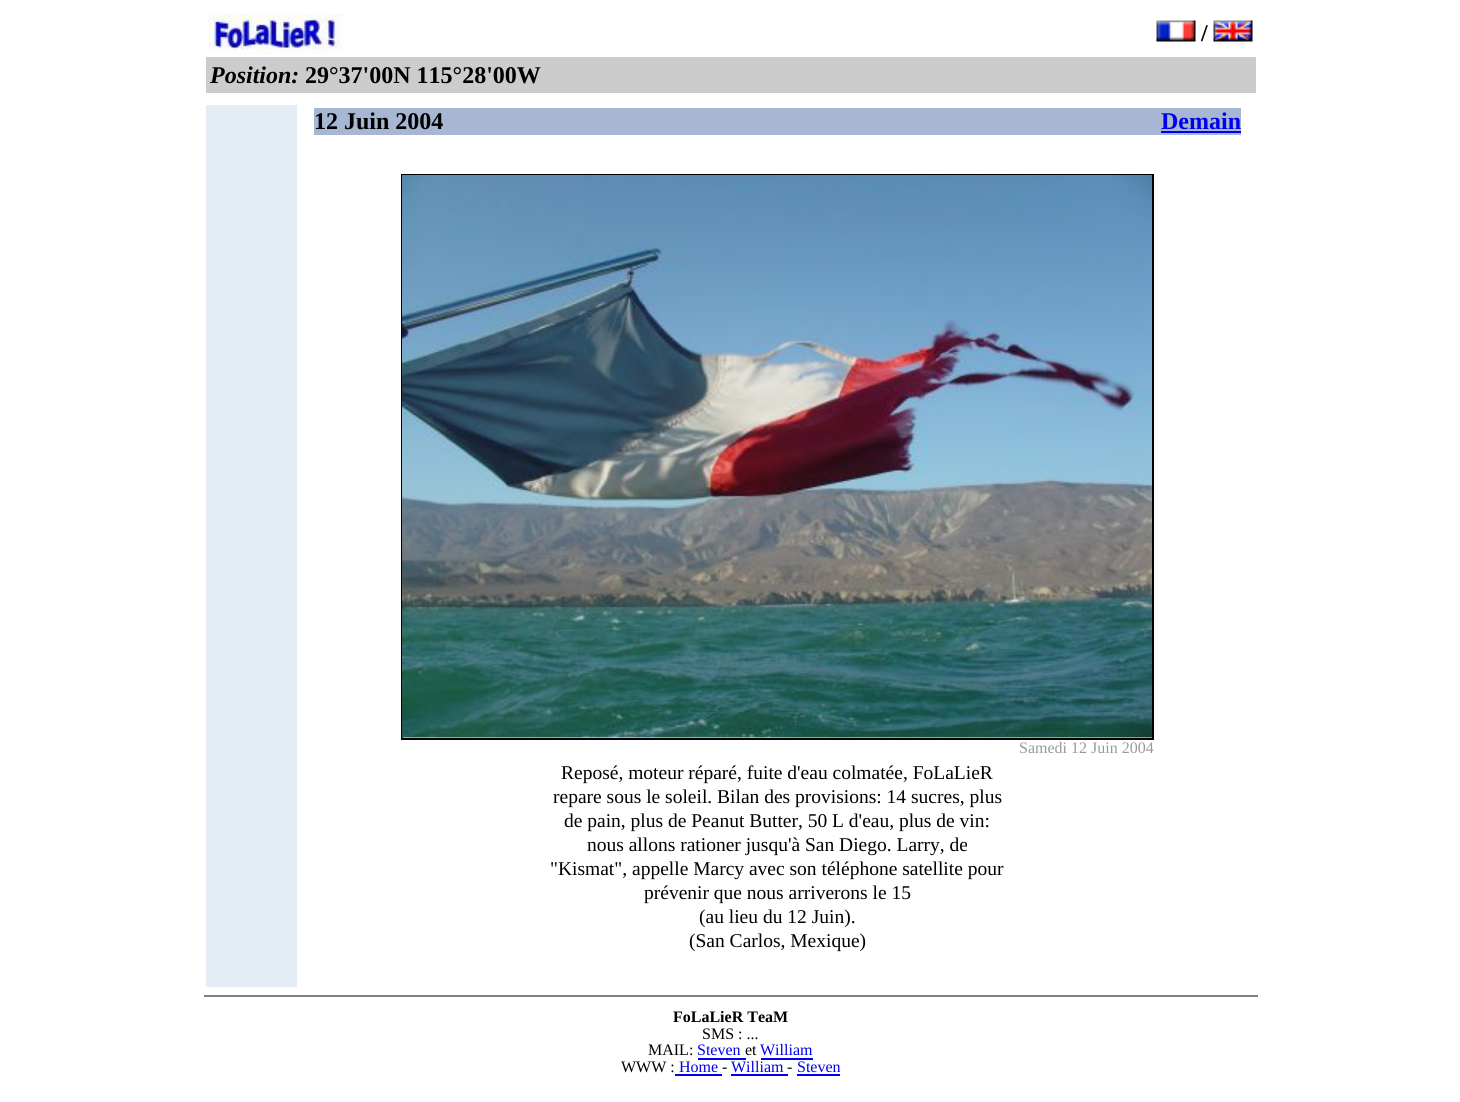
#include <cairo.h>
#include <math.h>
#include <stddef.h>

static cairo_t *ctx;

static void use_color(int r, int g, int b) {
    cairo_set_source_rgb(ctx, r / 255.0, g / 255.0, b / 255.0);
}

static void picture(const char *path, double x, double y, double w, double h) {
    cairo_surface_t *image = cairo_image_surface_create_from_png(path);
    cairo_save(ctx);
    cairo_set_source_surface(ctx, image, x, y);
    cairo_rectangle(ctx, x, y, w, h);
    cairo_fill(ctx);
    cairo_restore(ctx);
    cairo_surface_destroy(image);
}

int main(void) {
    cairo_surface_t *surface = cairo_image_surface_create(CAIRO_FORMAT_RGB24, 1460, 1102);
    ctx = cairo_create(surface);
    cairo_font_options_t *options = cairo_font_options_create();
    cairo_font_options_set_hint_metrics(options, CAIRO_HINT_METRICS_OFF);
    cairo_font_options_set_hint_style(options, CAIRO_HINT_STYLE_NONE);
    cairo_set_font_options(ctx, options);
    cairo_set_miter_limit(ctx, 4);
    use_color(255, 255, 255);
    cairo_paint(ctx);
    picture("img1.png", 208, 13, 136, 41);
    picture("img2.png", 1156, 20, 40, 22);
    cairo_select_font_face(ctx, "Liberation Serif", CAIRO_FONT_SLANT_NORMAL, CAIRO_FONT_WEIGHT_BOLD);
    cairo_set_font_size(ctx, 24);
    use_color(0, 0, 0);
    cairo_move_to(ctx, 1201, 41);
    cairo_show_text(ctx, "/");
    picture("img3.png", 1213, 20, 40, 22);
    use_color(204, 204, 204);
    cairo_rectangle(ctx, 206, 57, 1050, 36);
    cairo_fill(ctx);
    cairo_select_font_face(ctx, "Liberation Serif", CAIRO_FONT_SLANT_ITALIC, CAIRO_FONT_WEIGHT_BOLD);
    use_color(0, 0, 0);
    cairo_move_to(ctx, 210, 83);
    cairo_show_text(ctx, "Position:");
    cairo_select_font_face(ctx, "Liberation Serif", CAIRO_FONT_SLANT_NORMAL, CAIRO_FONT_WEIGHT_BOLD);
    cairo_move_to(ctx, 305, 83);
    cairo_show_text(ctx, "29°37'00N 115°28'00W");
    use_color(228, 236, 246);
    cairo_rectangle(ctx, 206, 105, 91, 882);
    cairo_fill(ctx);
    use_color(167, 182, 210);
    cairo_rectangle(ctx, 314, 108, 927, 27);
    cairo_fill(ctx);
    use_color(0, 0, 0);
    cairo_move_to(ctx, 314, 129);
    cairo_show_text(ctx, "12 Juin 2004");
    use_color(0, 0, 238);
    cairo_move_to(ctx, 1161, 129);
    cairo_show_text(ctx, "Demain");
    cairo_rectangle(ctx, 1161, 131, 80, 2);
    cairo_fill(ctx);
    cairo_rectangle(ctx, 402, 175, 751, 564);
    use_color(0, 0, 0);
    cairo_stroke(ctx);
    picture("img4.png", 402, 175, 750, 563);
    cairo_select_font_face(ctx, "Liberation Serif", CAIRO_FONT_SLANT_NORMAL, CAIRO_FONT_WEIGHT_NORMAL);
    cairo_set_font_size(ctx, 16);
    use_color(153, 153, 153);
    cairo_move_to(ctx, 1019, 753);
    cairo_show_text(ctx, "Samedi 12 Juin 2004");
    cairo_set_font_size(ctx, 19.5);
    use_color(0, 0, 0);
    cairo_move_to(ctx, 561, 779);
    cairo_show_text(ctx, "Reposé, moteur réparé, fuite d'eau colmatée, FoLaLieR");
    cairo_move_to(ctx, 553, 803);
    cairo_show_text(ctx, "repare sous le soleil. Bilan des provisions: 14 sucres, plus");
    cairo_move_to(ctx, 564, 827);
    cairo_show_text(ctx, "de pain, plus de Peanut Butter, 50 L d'eau, plus de vin:");
    cairo_move_to(ctx, 587, 851);
    cairo_show_text(ctx, "nous allons rationer jusqu'à San Diego. Larry, de");
    cairo_move_to(ctx, 550, 875);
    cairo_show_text(ctx, "\"Kismat\", appelle Marcy avec son téléphone satellite pour");
    cairo_move_to(ctx, 644, 899);
    cairo_show_text(ctx, "prévenir que nous arriverons le 15");
    cairo_move_to(ctx, 699, 923);
    cairo_show_text(ctx, "(au lieu du 12 Juin).");
    cairo_move_to(ctx, 689, 947);
    cairo_show_text(ctx, "(San Carlos, Mexique)");
    use_color(128, 128, 128);
    cairo_rectangle(ctx, 204, 995, 1054, 2);
    cairo_fill(ctx);
    cairo_select_font_face(ctx, "Liberation Serif", CAIRO_FONT_SLANT_NORMAL, CAIRO_FONT_WEIGHT_BOLD);
    cairo_set_font_size(ctx, 16);
    use_color(0, 0, 0);
    cairo_move_to(ctx, 673, 1022);
    cairo_show_text(ctx, "FoLaLieR TeaM");
    cairo_select_font_face(ctx, "Liberation Serif", CAIRO_FONT_SLANT_NORMAL, CAIRO_FONT_WEIGHT_NORMAL);
    cairo_move_to(ctx, 702, 1039);
    cairo_show_text(ctx, "SMS : ...");
    cairo_move_to(ctx, 648, 1055);
    cairo_show_text(ctx, "MAIL:");
    use_color(0, 0, 238);
    cairo_move_to(ctx, 697, 1055);
    cairo_show_text(ctx, "Steven");
    use_color(0, 0, 0);
    cairo_move_to(ctx, 745, 1055);
    cairo_show_text(ctx, "et");
    use_color(0, 0, 238);
    cairo_move_to(ctx, 760, 1055);
    cairo_show_text(ctx, "William");
    use_color(0, 0, 0);
    cairo_move_to(ctx, 621, 1072);
    cairo_show_text(ctx, "WWW :");
    use_color(0, 0, 238);
    cairo_move_to(ctx, 679, 1072);
    cairo_show_text(ctx, "Home");
    use_color(0, 0, 0);
    cairo_move_to(ctx, 722, 1072);
    cairo_show_text(ctx, "-");
    use_color(0, 0, 238);
    cairo_rectangle(ctx, 675, 1074, 47, 2);
    cairo_fill(ctx);
    cairo_move_to(ctx, 731, 1072);
    cairo_show_text(ctx, "William");
    cairo_rectangle(ctx, 698, 1058, 48, 2);
    cairo_fill(ctx);
    cairo_rectangle(ctx, 761, 1058, 52, 2);
    cairo_fill(ctx);
    use_color(0, 0, 0);
    cairo_move_to(ctx, 787, 1072);
    cairo_show_text(ctx, "-");
    use_color(0, 0, 238);
    cairo_rectangle(ctx, 731, 1074, 57, 2);
    cairo_fill(ctx);
    cairo_move_to(ctx, 797, 1072);
    cairo_show_text(ctx, "Steven");
    cairo_rectangle(ctx, 797, 1074, 43, 2);
    cairo_fill(ctx);
    cairo_surface_write_to_png(surface, "result.png");
    cairo_font_options_destroy(options);
    cairo_destroy(ctx);
    cairo_surface_destroy(surface);
    return 0;
}
